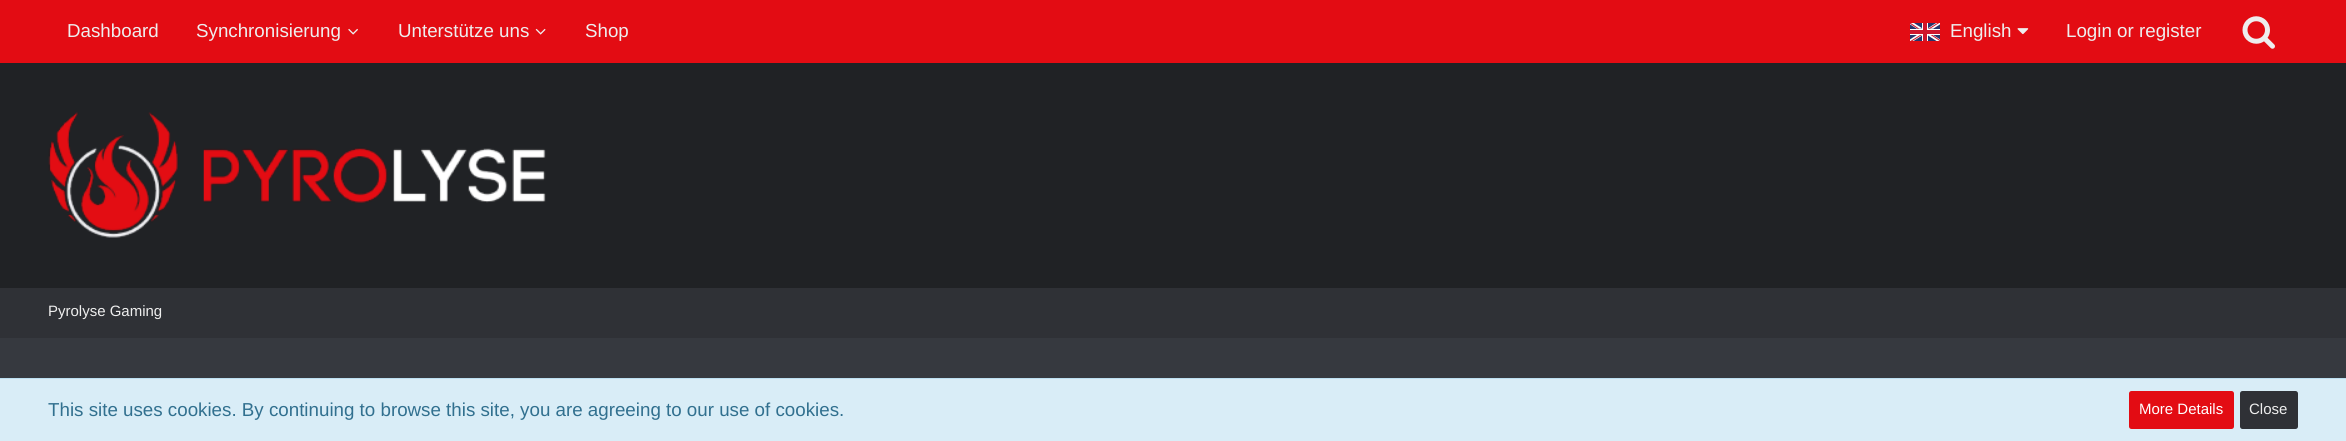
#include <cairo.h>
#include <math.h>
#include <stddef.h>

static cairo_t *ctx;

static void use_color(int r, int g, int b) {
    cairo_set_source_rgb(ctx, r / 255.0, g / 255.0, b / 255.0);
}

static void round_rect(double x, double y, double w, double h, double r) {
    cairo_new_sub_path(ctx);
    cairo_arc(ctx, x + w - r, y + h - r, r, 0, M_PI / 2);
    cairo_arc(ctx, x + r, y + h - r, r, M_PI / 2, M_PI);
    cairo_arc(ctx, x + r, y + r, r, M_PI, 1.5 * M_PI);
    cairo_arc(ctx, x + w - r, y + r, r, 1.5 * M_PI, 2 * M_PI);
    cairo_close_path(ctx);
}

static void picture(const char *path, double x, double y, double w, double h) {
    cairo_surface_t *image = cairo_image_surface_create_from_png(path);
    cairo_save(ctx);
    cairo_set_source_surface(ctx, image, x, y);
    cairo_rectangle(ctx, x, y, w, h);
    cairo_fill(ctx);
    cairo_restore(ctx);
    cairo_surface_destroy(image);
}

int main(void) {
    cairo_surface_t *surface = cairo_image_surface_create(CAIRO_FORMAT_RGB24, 2346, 441);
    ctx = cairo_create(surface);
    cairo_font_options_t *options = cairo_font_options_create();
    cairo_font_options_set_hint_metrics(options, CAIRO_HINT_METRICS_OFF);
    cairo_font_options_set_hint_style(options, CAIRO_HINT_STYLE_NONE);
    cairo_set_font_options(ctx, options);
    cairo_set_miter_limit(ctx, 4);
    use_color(54, 57, 63);
    cairo_paint(ctx);
    use_color(32, 34, 37);
    cairo_rectangle(ctx, 0, 63, 2346, 225);
    cairo_fill(ctx);
    use_color(227, 12, 19);
    cairo_rectangle(ctx, 0, 0, 2346, 63);
    cairo_fill(ctx);
    cairo_select_font_face(ctx, "Liberation Sans", CAIRO_FONT_SLANT_NORMAL, CAIRO_FONT_WEIGHT_NORMAL);
    cairo_set_font_size(ctx, 18.75);
    use_color(238, 238, 238);
    cairo_move_to(ctx, 67, 37);
    cairo_show_text(ctx, "Dashboard");
    cairo_move_to(ctx, 196, 37);
    cairo_show_text(ctx, "Synchronisierung");
    picture("img1.png", 348, 28, 10, 7);
    cairo_move_to(ctx, 398, 37);
    cairo_show_text(ctx, "Unterstütze uns");
    picture("img2.png", 535, 28, 11, 7);
    cairo_move_to(ctx, 585, 37);
    cairo_show_text(ctx, "Shop");
    picture("img3.png", 1910, 23, 30, 18);
    cairo_move_to(ctx, 1950, 37);
    cairo_show_text(ctx, "English");
    picture("img4.png", 2017, 28, 12, 7);
    cairo_move_to(ctx, 2066, 37);
    cairo_show_text(ctx, "Login or register");
    picture("img5.png", 2242, 16, 33, 33);
    picture("img6.png", 48, 112, 498, 126);
    use_color(47, 49, 54);
    cairo_rectangle(ctx, 0, 288, 2346, 50);
    cairo_fill(ctx);
    cairo_set_font_size(ctx, 15);
    use_color(238, 238, 238);
    cairo_move_to(ctx, 48, 316);
    cairo_show_text(ctx, "Pyrolyse Gaming");
    use_color(217, 237, 247);
    cairo_rectangle(ctx, 0, 379, 2346, 62);
    cairo_fill(ctx);
    use_color(188, 223, 241);
    cairo_rectangle(ctx, 0, 378, 2346, 1);
    cairo_fill(ctx);
    cairo_set_font_size(ctx, 18.75);
    use_color(49, 112, 143);
    cairo_move_to(ctx, 48, 416);
    cairo_show_text(ctx, "This site uses cookies. By continuing to browse this site, you are agreeing to our use of cookies.");
    use_color(227, 12, 19);
    round_rect(2129, 391, 105, 38, 2.5);
    cairo_fill(ctx);
    cairo_set_font_size(ctx, 15);
    use_color(255, 255, 255);
    cairo_move_to(ctx, 2139, 414);
    cairo_show_text(ctx, "More Details");
    use_color(47, 49, 54);
    round_rect(2240, 391, 58, 38, 2.5);
    cairo_fill(ctx);
    use_color(238, 238, 238);
    cairo_move_to(ctx, 2249, 414);
    cairo_show_text(ctx, "Close");
    cairo_surface_write_to_png(surface, "result.png");
    cairo_font_options_destroy(options);
    cairo_destroy(ctx);
    cairo_surface_destroy(surface);
    return 0;
}
